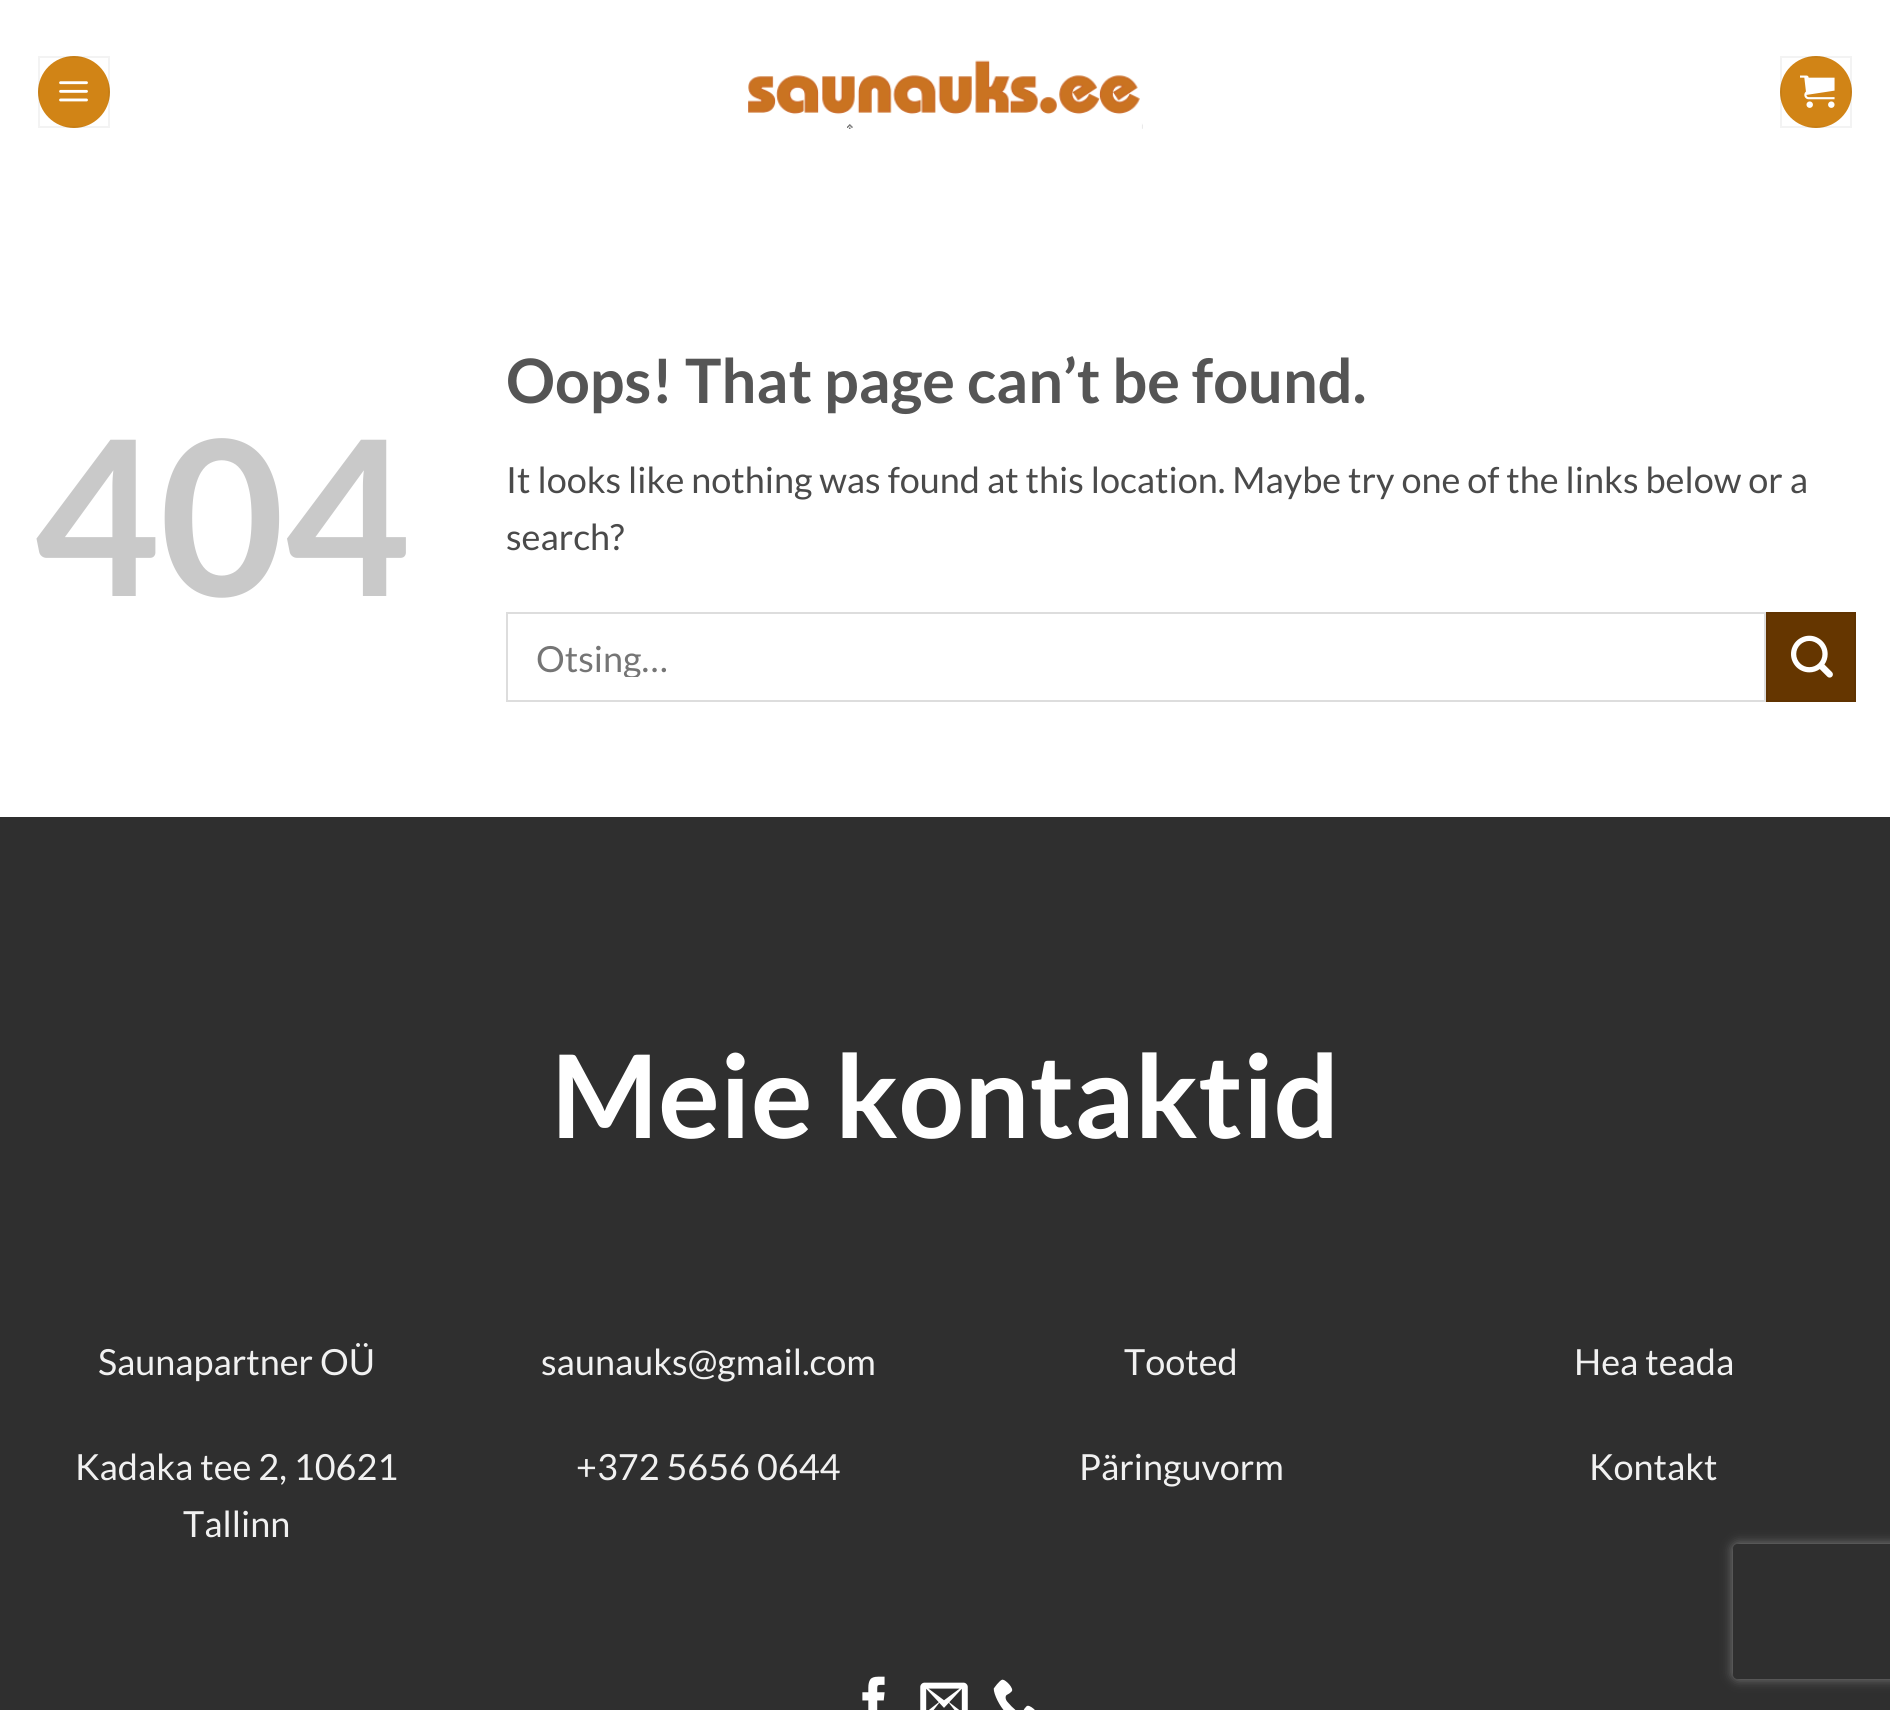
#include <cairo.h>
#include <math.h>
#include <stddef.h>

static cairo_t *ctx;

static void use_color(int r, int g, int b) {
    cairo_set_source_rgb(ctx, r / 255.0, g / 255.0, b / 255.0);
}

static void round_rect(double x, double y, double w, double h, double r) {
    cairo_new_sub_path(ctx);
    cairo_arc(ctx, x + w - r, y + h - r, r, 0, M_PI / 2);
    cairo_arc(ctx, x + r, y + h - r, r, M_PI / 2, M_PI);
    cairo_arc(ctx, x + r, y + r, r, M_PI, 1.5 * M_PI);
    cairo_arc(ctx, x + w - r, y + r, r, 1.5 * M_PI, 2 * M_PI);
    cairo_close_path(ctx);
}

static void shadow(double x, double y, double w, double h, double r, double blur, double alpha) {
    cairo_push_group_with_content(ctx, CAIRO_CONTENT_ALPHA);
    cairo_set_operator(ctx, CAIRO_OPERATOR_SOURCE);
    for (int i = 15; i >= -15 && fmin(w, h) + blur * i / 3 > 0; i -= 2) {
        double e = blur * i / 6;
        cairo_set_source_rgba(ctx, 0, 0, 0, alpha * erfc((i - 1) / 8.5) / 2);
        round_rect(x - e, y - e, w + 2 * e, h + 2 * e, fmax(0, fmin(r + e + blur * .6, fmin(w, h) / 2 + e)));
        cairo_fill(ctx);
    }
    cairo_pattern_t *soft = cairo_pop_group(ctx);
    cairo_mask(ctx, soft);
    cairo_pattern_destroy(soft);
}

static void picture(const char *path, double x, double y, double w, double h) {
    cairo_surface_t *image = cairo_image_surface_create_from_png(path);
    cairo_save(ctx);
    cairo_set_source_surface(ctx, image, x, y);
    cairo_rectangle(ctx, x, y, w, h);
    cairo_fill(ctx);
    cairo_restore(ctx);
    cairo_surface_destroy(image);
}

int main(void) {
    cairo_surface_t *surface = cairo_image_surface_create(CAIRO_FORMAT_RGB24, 1890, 1710);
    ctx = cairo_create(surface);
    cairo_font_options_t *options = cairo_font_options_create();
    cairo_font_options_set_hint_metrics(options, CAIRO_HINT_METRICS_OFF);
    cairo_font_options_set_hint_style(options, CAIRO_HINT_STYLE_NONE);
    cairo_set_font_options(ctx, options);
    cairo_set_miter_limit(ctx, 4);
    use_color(255, 255, 255);
    cairo_paint(ctx);
    use_color(209, 132, 22);
    cairo_arc(ctx, 74, 92, 36, 0, 2 * M_PI);
    cairo_fill(ctx);
    cairo_rectangle(ctx, 39, 57, 70, 70);
    cairo_set_source_rgba(ctx, 0, 0, 0, 0.05);
    cairo_stroke(ctx);
    picture("img1.png", 59, 81, 29, 21);
    picture("img2.png", 748, 60, 395, 69);
    use_color(209, 132, 22);
    cairo_arc(ctx, 1816, 92, 36, 0, 2 * M_PI);
    cairo_fill(ctx);
    cairo_rectangle(ctx, 1781, 57, 70, 70);
    cairo_set_source_rgba(ctx, 0, 0, 0, 0.05);
    cairo_stroke(ctx);
    picture("img3.png", 1800, 75, 35, 33);
    cairo_select_font_face(ctx, "Lato", CAIRO_FONT_SLANT_NORMAL, CAIRO_FONT_WEIGHT_BOLD);
    cairo_set_font_size(ctx, 216);
    use_color(201, 201, 201);
    cairo_move_to(ctx, 34, 596);
    cairo_show_text(ctx, "404");
    cairo_set_font_size(ctx, 61.25);
    use_color(85, 85, 85);
    cairo_move_to(ctx, 506, 403);
    cairo_show_text(ctx, "Oops! That page can’t be found.");
    cairo_select_font_face(ctx, "Lato", CAIRO_FONT_SLANT_NORMAL, CAIRO_FONT_WEIGHT_NORMAL);
    cairo_set_font_size(ctx, 36);
    use_color(74, 74, 74);
    cairo_move_to(ctx, 506, 493);
    cairo_show_text(ctx, "It looks like nothing was found at this location. Maybe try one of the links below or a");
    cairo_move_to(ctx, 506, 550);
    cairo_show_text(ctx, "search?");
    cairo_rectangle(ctx, 507, 613, 1258, 88);
    use_color(221, 221, 221);
    cairo_stroke(ctx);
    cairo_save(ctx);
    cairo_rectangle(ctx, 536, 635, 1192, 42);
    cairo_clip(ctx);
    use_color(117, 117, 117);
    cairo_move_to(ctx, 536, 672);
    cairo_show_text(ctx, "Otsing…");
    cairo_restore(ctx);
    use_color(101, 54, 0);
    cairo_rectangle(ctx, 1767, 613, 88, 88);
    cairo_fill_preserve(ctx);
    use_color(96, 51, 0);
    cairo_stroke(ctx);
    picture("img4.png", 1791, 635, 42, 43);
    use_color(47, 47, 47);
    cairo_rectangle(ctx, 0, 817, 1890, 893);
    cairo_fill(ctx);
    cairo_select_font_face(ctx, "Lato", CAIRO_FONT_SLANT_NORMAL, CAIRO_FONT_WEIGHT_BOLD);
    cairo_set_font_size(ctx, 115.25);
    use_color(255, 255, 255);
    cairo_move_to(ctx, 551, 1138);
    cairo_show_text(ctx, "Meie kontaktid");
    cairo_select_font_face(ctx, "Lato", CAIRO_FONT_SLANT_NORMAL, CAIRO_FONT_WEIGHT_NORMAL);
    cairo_set_font_size(ctx, 36);
    use_color(241, 241, 241);
    cairo_move_to(ctx, 98, 1375);
    cairo_show_text(ctx, "Saunapartner OÜ");
    cairo_move_to(ctx, 75, 1480);
    cairo_show_text(ctx, "Kadaka tee 2, 10621");
    cairo_move_to(ctx, 183, 1537);
    cairo_show_text(ctx, "Tallinn");
    cairo_move_to(ctx, 541, 1375);
    cairo_show_text(ctx, "saunauks@gmail.com");
    cairo_move_to(ctx, 576, 1480);
    cairo_show_text(ctx, "+372 5656 0644");
    cairo_move_to(ctx, 1124, 1375);
    cairo_show_text(ctx, "Tooted");
    cairo_move_to(ctx, 1079, 1480);
    cairo_show_text(ctx, "Päringuvorm");
    cairo_move_to(ctx, 1574, 1375);
    cairo_show_text(ctx, "Hea teada");
    cairo_move_to(ctx, 1589, 1480);
    cairo_show_text(ctx, "Kontakt");
    picture("img5.png", 862, 1676, 23, 34);
    picture("img6.png", 920, 1682, 48, 28);
    picture("img7.png", 993, 1679, 42, 31);
    cairo_save(ctx);
    cairo_set_fill_rule(ctx, CAIRO_FILL_RULE_EVEN_ODD);
    cairo_new_path(ctx);
    cairo_move_to(ctx, 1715, 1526);
    cairo_line_to(ctx, 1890, 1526);
    cairo_line_to(ctx, 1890, 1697);
    cairo_line_to(ctx, 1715, 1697);
    cairo_close_path(ctx);
    cairo_move_to(ctx, 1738, 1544);
    cairo_line_to(ctx, 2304, 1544);
    cairo_curve_to(ctx, 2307, 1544, 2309, 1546, 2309, 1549);
    cairo_line_to(ctx, 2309, 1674);
    cairo_curve_to(ctx, 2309, 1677, 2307, 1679, 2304, 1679);
    cairo_line_to(ctx, 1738, 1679);
    cairo_curve_to(ctx, 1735, 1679, 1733, 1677, 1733, 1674);
    cairo_line_to(ctx, 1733, 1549);
    cairo_curve_to(ctx, 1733, 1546, 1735, 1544, 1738, 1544);
    cairo_close_path(ctx);
    cairo_clip(ctx);
    use_color(128, 128, 128);
    shadow(1733, 1544, 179, 135, 5, 5.5, 1);
    cairo_restore(ctx);
    cairo_surface_write_to_png(surface, "result.png");
    cairo_font_options_destroy(options);
    cairo_destroy(ctx);
    cairo_surface_destroy(surface);
    return 0;
}
